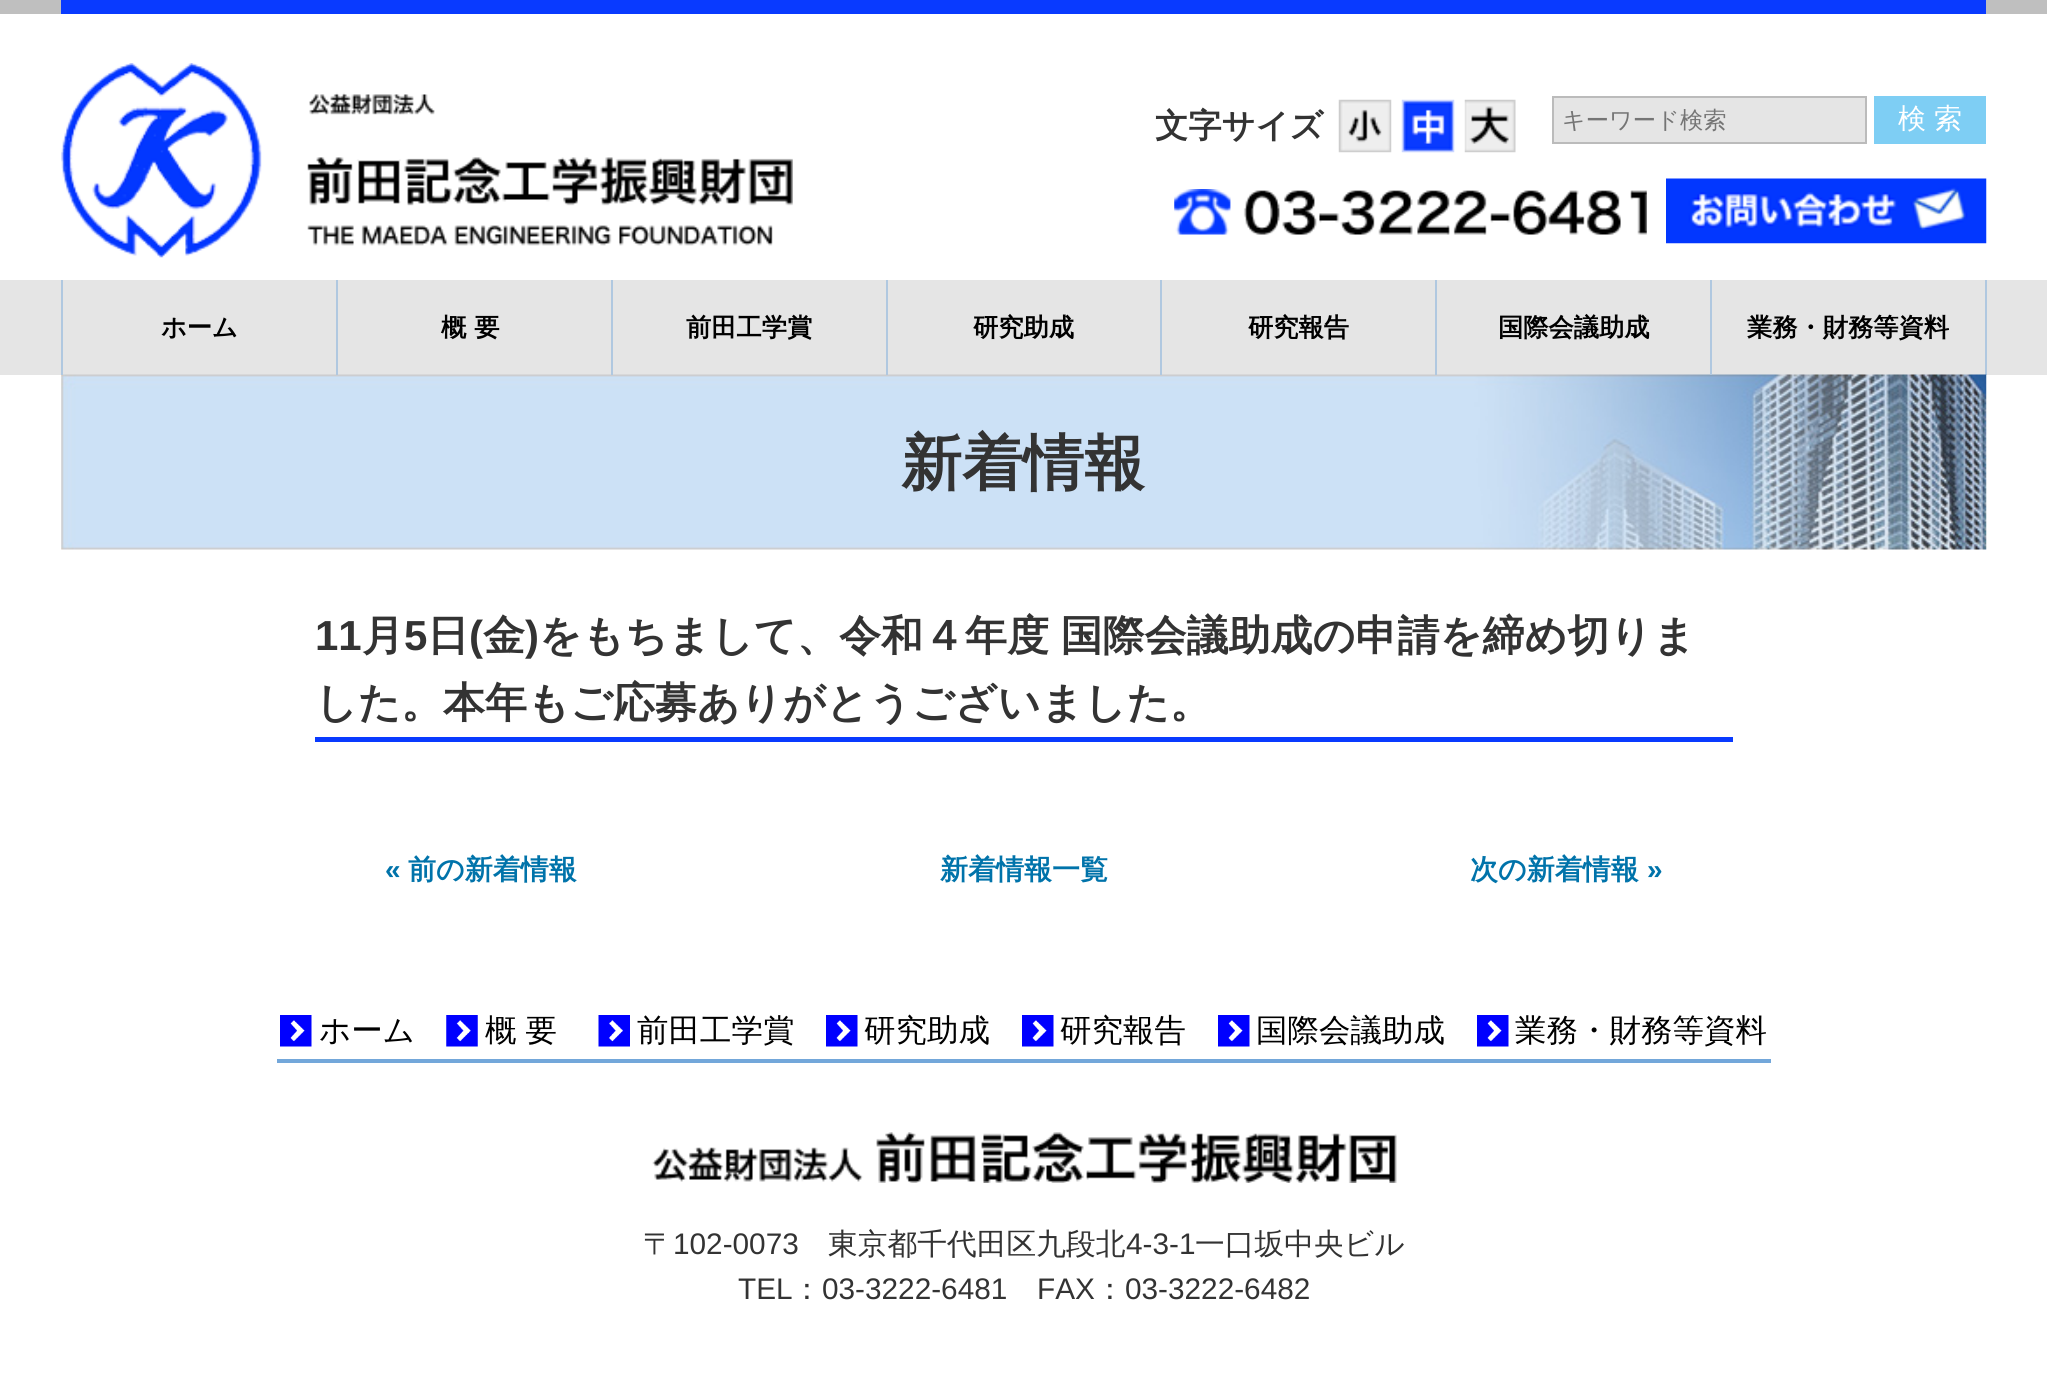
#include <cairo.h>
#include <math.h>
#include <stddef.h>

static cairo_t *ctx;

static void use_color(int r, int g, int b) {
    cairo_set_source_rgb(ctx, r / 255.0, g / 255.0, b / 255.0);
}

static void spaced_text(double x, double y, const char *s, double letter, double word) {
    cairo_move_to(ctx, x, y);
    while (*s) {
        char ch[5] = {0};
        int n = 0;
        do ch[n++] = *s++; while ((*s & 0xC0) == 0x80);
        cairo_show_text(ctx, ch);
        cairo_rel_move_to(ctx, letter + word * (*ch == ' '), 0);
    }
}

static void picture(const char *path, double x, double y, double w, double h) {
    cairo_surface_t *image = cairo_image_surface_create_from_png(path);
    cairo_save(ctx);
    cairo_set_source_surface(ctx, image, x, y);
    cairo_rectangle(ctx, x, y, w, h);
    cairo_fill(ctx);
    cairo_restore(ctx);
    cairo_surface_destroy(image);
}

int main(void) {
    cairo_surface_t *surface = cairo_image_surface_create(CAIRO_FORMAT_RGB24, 2047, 1373);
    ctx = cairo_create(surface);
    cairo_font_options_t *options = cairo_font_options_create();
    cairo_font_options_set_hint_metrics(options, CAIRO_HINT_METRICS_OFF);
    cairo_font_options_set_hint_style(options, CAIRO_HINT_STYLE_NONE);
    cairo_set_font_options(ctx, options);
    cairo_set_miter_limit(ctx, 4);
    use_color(255, 255, 255);
    cairo_paint(ctx);
    use_color(191, 191, 191);
    cairo_rectangle(ctx, 0, 0, 2047, 14);
    cairo_fill(ctx);
    use_color(9, 58, 255);
    cairo_rectangle(ctx, 61, 0, 1925, 14);
    cairo_fill(ctx);
    picture("img1.png", 61, 63, 732, 195);
    cairo_select_font_face(ctx, "WenQuanYi Zen Hei", CAIRO_FONT_SLANT_NORMAL, CAIRO_FONT_WEIGHT_BOLD);
    cairo_set_font_size(ctx, 33.25);
    use_color(51, 51, 51);
    cairo_move_to(ctx, 1155, 137);
    cairo_show_text(ctx, "文字サイズ");
    picture("img2.png", 1338, 99, 54, 54);
    picture("img3.png", 1401, 99, 54, 54);
    picture("img4.png", 1464, 99, 52, 54);
    use_color(229, 229, 229);
    cairo_rectangle(ctx, 1553, 97, 313, 46);
    cairo_fill_preserve(ctx);
    use_color(187, 187, 187);
    cairo_stroke(ctx);
    cairo_select_font_face(ctx, "WenQuanYi Zen Hei Medium", CAIRO_FONT_SLANT_NORMAL, CAIRO_FONT_WEIGHT_NORMAL);
    cairo_set_font_size(ctx, 23.25);
    use_color(117, 117, 117);
    cairo_move_to(ctx, 1562, 128);
    cairo_show_text(ctx, "キーワード検索");
    use_color(126, 206, 244);
    cairo_rectangle(ctx, 1874, 96, 112, 48);
    cairo_fill(ctx);
    cairo_set_font_size(ctx, 28);
    use_color(255, 255, 255);
    cairo_move_to(ctx, 1898, 128);
    cairo_show_text(ctx, "検");
    cairo_move_to(ctx, 1934, 128);
    cairo_show_text(ctx, "索");
    picture("img5.png", 1174, 189, 473, 46);
    picture("img6.png", 1666, 178, 321, 66);
    use_color(229, 229, 229);
    cairo_rectangle(ctx, 0, 280, 2047, 95);
    cairo_fill(ctx);
    use_color(176, 200, 224);
    cairo_rectangle(ctx, 1985, 280, 2, 95);
    cairo_fill(ctx);
    picture("img7.png", 61, 374, 1926, 176);
    cairo_rectangle(ctx, 61, 280, 2, 95);
    cairo_fill(ctx);
    cairo_select_font_face(ctx, "WenQuanYi Zen Hei", CAIRO_FONT_SLANT_NORMAL, CAIRO_FONT_WEIGHT_BOLD);
    cairo_set_font_size(ctx, 25.25);
    use_color(0, 0, 0);
    cairo_move_to(ctx, 161, 336);
    cairo_show_text(ctx, "ホーム");
    use_color(176, 200, 224);
    cairo_rectangle(ctx, 336, 280, 2, 95);
    cairo_fill(ctx);
    use_color(0, 0, 0);
    spaced_text(441, 336, "概要", 8, 0);
    use_color(176, 200, 224);
    cairo_rectangle(ctx, 611, 280, 2, 95);
    cairo_fill(ctx);
    use_color(0, 0, 0);
    cairo_move_to(ctx, 686, 336);
    cairo_show_text(ctx, "前田工学賞");
    use_color(176, 200, 224);
    cairo_rectangle(ctx, 886, 280, 2, 95);
    cairo_fill(ctx);
    use_color(0, 0, 0);
    cairo_move_to(ctx, 973, 336);
    cairo_show_text(ctx, "研究助成");
    use_color(176, 200, 224);
    cairo_rectangle(ctx, 1160, 280, 2, 95);
    cairo_fill(ctx);
    use_color(0, 0, 0);
    cairo_move_to(ctx, 1248, 336);
    cairo_show_text(ctx, "研究報告");
    use_color(176, 200, 224);
    cairo_rectangle(ctx, 1435, 280, 2, 95);
    cairo_fill(ctx);
    use_color(0, 0, 0);
    cairo_move_to(ctx, 1498, 336);
    cairo_show_text(ctx, "国際会議助成");
    use_color(176, 200, 224);
    cairo_rectangle(ctx, 1710, 280, 2, 95);
    cairo_fill(ctx);
    use_color(0, 0, 0);
    cairo_move_to(ctx, 1747, 336);
    cairo_show_text(ctx, "業務・財務等資料");
    cairo_set_font_size(ctx, 61);
    use_color(51, 51, 51);
    cairo_move_to(ctx, 901, 484);
    cairo_show_text(ctx, "新着情報");
    use_color(9, 58, 255);
    cairo_rectangle(ctx, 315, 737, 1418, 5);
    cairo_fill(ctx);
    cairo_select_font_face(ctx, "Liberation Sans", CAIRO_FONT_SLANT_NORMAL, CAIRO_FONT_WEIGHT_BOLD);
    cairo_set_font_size(ctx, 42);
    use_color(51, 51, 51);
    cairo_move_to(ctx, 315, 650);
    cairo_show_text(ctx, "11");
    cairo_select_font_face(ctx, "WenQuanYi Zen Hei", CAIRO_FONT_SLANT_NORMAL, CAIRO_FONT_WEIGHT_BOLD);
    cairo_move_to(ctx, 362, 650);
    cairo_show_text(ctx, "月");
    cairo_select_font_face(ctx, "Liberation Sans", CAIRO_FONT_SLANT_NORMAL, CAIRO_FONT_WEIGHT_BOLD);
    cairo_move_to(ctx, 404, 650);
    cairo_show_text(ctx, "5");
    cairo_select_font_face(ctx, "WenQuanYi Zen Hei", CAIRO_FONT_SLANT_NORMAL, CAIRO_FONT_WEIGHT_BOLD);
    cairo_move_to(ctx, 427, 650);
    cairo_show_text(ctx, "日");
    cairo_select_font_face(ctx, "Liberation Sans", CAIRO_FONT_SLANT_NORMAL, CAIRO_FONT_WEIGHT_BOLD);
    cairo_move_to(ctx, 469, 650);
    cairo_show_text(ctx, "(");
    cairo_select_font_face(ctx, "WenQuanYi Zen Hei", CAIRO_FONT_SLANT_NORMAL, CAIRO_FONT_WEIGHT_BOLD);
    cairo_move_to(ctx, 483, 650);
    cairo_show_text(ctx, "金");
    cairo_select_font_face(ctx, "Liberation Sans", CAIRO_FONT_SLANT_NORMAL, CAIRO_FONT_WEIGHT_BOLD);
    cairo_move_to(ctx, 525, 650);
    cairo_show_text(ctx, ")");
    cairo_select_font_face(ctx, "WenQuanYi Zen Hei", CAIRO_FONT_SLANT_NORMAL, CAIRO_FONT_WEIGHT_BOLD);
    spaced_text(539, 650, "をもちまして、令和４年度 国際会議助成の申請を締め切りま", 0, -1);
    cairo_move_to(ctx, 315, 717);
    cairo_show_text(ctx, "した。本年もご応募ありがとうございました。");
    cairo_select_font_face(ctx, "Liberation Sans", CAIRO_FONT_SLANT_NORMAL, CAIRO_FONT_WEIGHT_BOLD);
    cairo_set_font_size(ctx, 28);
    use_color(0, 115, 170);
    cairo_move_to(ctx, 385, 879);
    cairo_show_text(ctx, "«");
    cairo_select_font_face(ctx, "WenQuanYi Zen Hei", CAIRO_FONT_SLANT_NORMAL, CAIRO_FONT_WEIGHT_BOLD);
    cairo_move_to(ctx, 408, 879);
    cairo_show_text(ctx, "前の新着情報");
    cairo_move_to(ctx, 940, 879);
    cairo_show_text(ctx, "新着情報一覧");
    cairo_move_to(ctx, 1470, 879);
    cairo_show_text(ctx, "次の新着情報");
    cairo_select_font_face(ctx, "Liberation Sans", CAIRO_FONT_SLANT_NORMAL, CAIRO_FONT_WEIGHT_BOLD);
    cairo_move_to(ctx, 1647, 879);
    cairo_show_text(ctx, "»");
    use_color(115, 167, 218);
    cairo_rectangle(ctx, 277, 1059, 1494, 4);
    cairo_fill(ctx);
    picture("img8.png", 280, 1015, 32, 32);
    cairo_select_font_face(ctx, "WenQuanYi Zen Hei Medium", CAIRO_FONT_SLANT_NORMAL, CAIRO_FONT_WEIGHT_NORMAL);
    cairo_set_font_size(ctx, 31.5);
    use_color(0, 0, 0);
    cairo_move_to(ctx, 319, 1041);
    cairo_show_text(ctx, "ホーム");
    picture("img9.png", 446, 1015, 32, 32);
    spaced_text(485, 1041, "概要", 9, 0);
    picture("img10.png", 598, 1015, 32, 32);
    cairo_move_to(ctx, 637, 1041);
    cairo_show_text(ctx, "前田工学賞");
    picture("img8.png", 826, 1015, 32, 32);
    cairo_move_to(ctx, 864, 1041);
    cairo_show_text(ctx, "研究助成");
    picture("img8.png", 1022, 1015, 32, 32);
    cairo_move_to(ctx, 1060, 1041);
    cairo_show_text(ctx, "研究報告");
    picture("img8.png", 1218, 1015, 32, 32);
    cairo_move_to(ctx, 1256, 1041);
    cairo_show_text(ctx, "国際会議助成");
    picture("img8.png", 1477, 1015, 32, 32);
    cairo_move_to(ctx, 1515, 1041);
    cairo_show_text(ctx, "業務・財務等資料");
    picture("img11.png", 652, 1132, 745, 51);
    cairo_set_font_size(ctx, 29.75);
    use_color(51, 51, 51);
    cairo_move_to(ctx, 643, 1254);
    cairo_show_text(ctx, "〒");
    cairo_select_font_face(ctx, "Liberation Sans", CAIRO_FONT_SLANT_NORMAL, CAIRO_FONT_WEIGHT_NORMAL);
    cairo_move_to(ctx, 673, 1254);
    cairo_show_text(ctx, "102-0073");
    cairo_select_font_face(ctx, "WenQuanYi Zen Hei Medium", CAIRO_FONT_SLANT_NORMAL, CAIRO_FONT_WEIGHT_NORMAL);
    cairo_move_to(ctx, 828, 1254);
    cairo_show_text(ctx, "東京都千代田区九段北");
    cairo_select_font_face(ctx, "Liberation Sans", CAIRO_FONT_SLANT_NORMAL, CAIRO_FONT_WEIGHT_NORMAL);
    cairo_move_to(ctx, 1126, 1254);
    cairo_show_text(ctx, "4-3-1");
    cairo_select_font_face(ctx, "WenQuanYi Zen Hei Medium", CAIRO_FONT_SLANT_NORMAL, CAIRO_FONT_WEIGHT_NORMAL);
    cairo_move_to(ctx, 1195, 1254);
    cairo_show_text(ctx, "一口坂中央ビル");
    cairo_select_font_face(ctx, "Liberation Sans", CAIRO_FONT_SLANT_NORMAL, CAIRO_FONT_WEIGHT_NORMAL);
    cairo_move_to(ctx, 738, 1299);
    cairo_show_text(ctx, "TEL");
    cairo_select_font_face(ctx, "WenQuanYi Zen Hei Medium", CAIRO_FONT_SLANT_NORMAL, CAIRO_FONT_WEIGHT_NORMAL);
    cairo_move_to(ctx, 792, 1299);
    cairo_show_text(ctx, "：");
    cairo_select_font_face(ctx, "Liberation Sans", CAIRO_FONT_SLANT_NORMAL, CAIRO_FONT_WEIGHT_NORMAL);
    cairo_move_to(ctx, 822, 1299);
    cairo_show_text(ctx, "03-3222-6481");
    cairo_move_to(ctx, 1037, 1299);
    cairo_show_text(ctx, "FAX");
    cairo_select_font_face(ctx, "WenQuanYi Zen Hei Medium", CAIRO_FONT_SLANT_NORMAL, CAIRO_FONT_WEIGHT_NORMAL);
    cairo_move_to(ctx, 1095, 1299);
    cairo_show_text(ctx, "：");
    cairo_select_font_face(ctx, "Liberation Sans", CAIRO_FONT_SLANT_NORMAL, CAIRO_FONT_WEIGHT_NORMAL);
    cairo_move_to(ctx, 1125, 1299);
    cairo_show_text(ctx, "03-3222-6482");
    cairo_surface_write_to_png(surface, "result.png");
    cairo_font_options_destroy(options);
    cairo_destroy(ctx);
    cairo_surface_destroy(surface);
    return 0;
}
